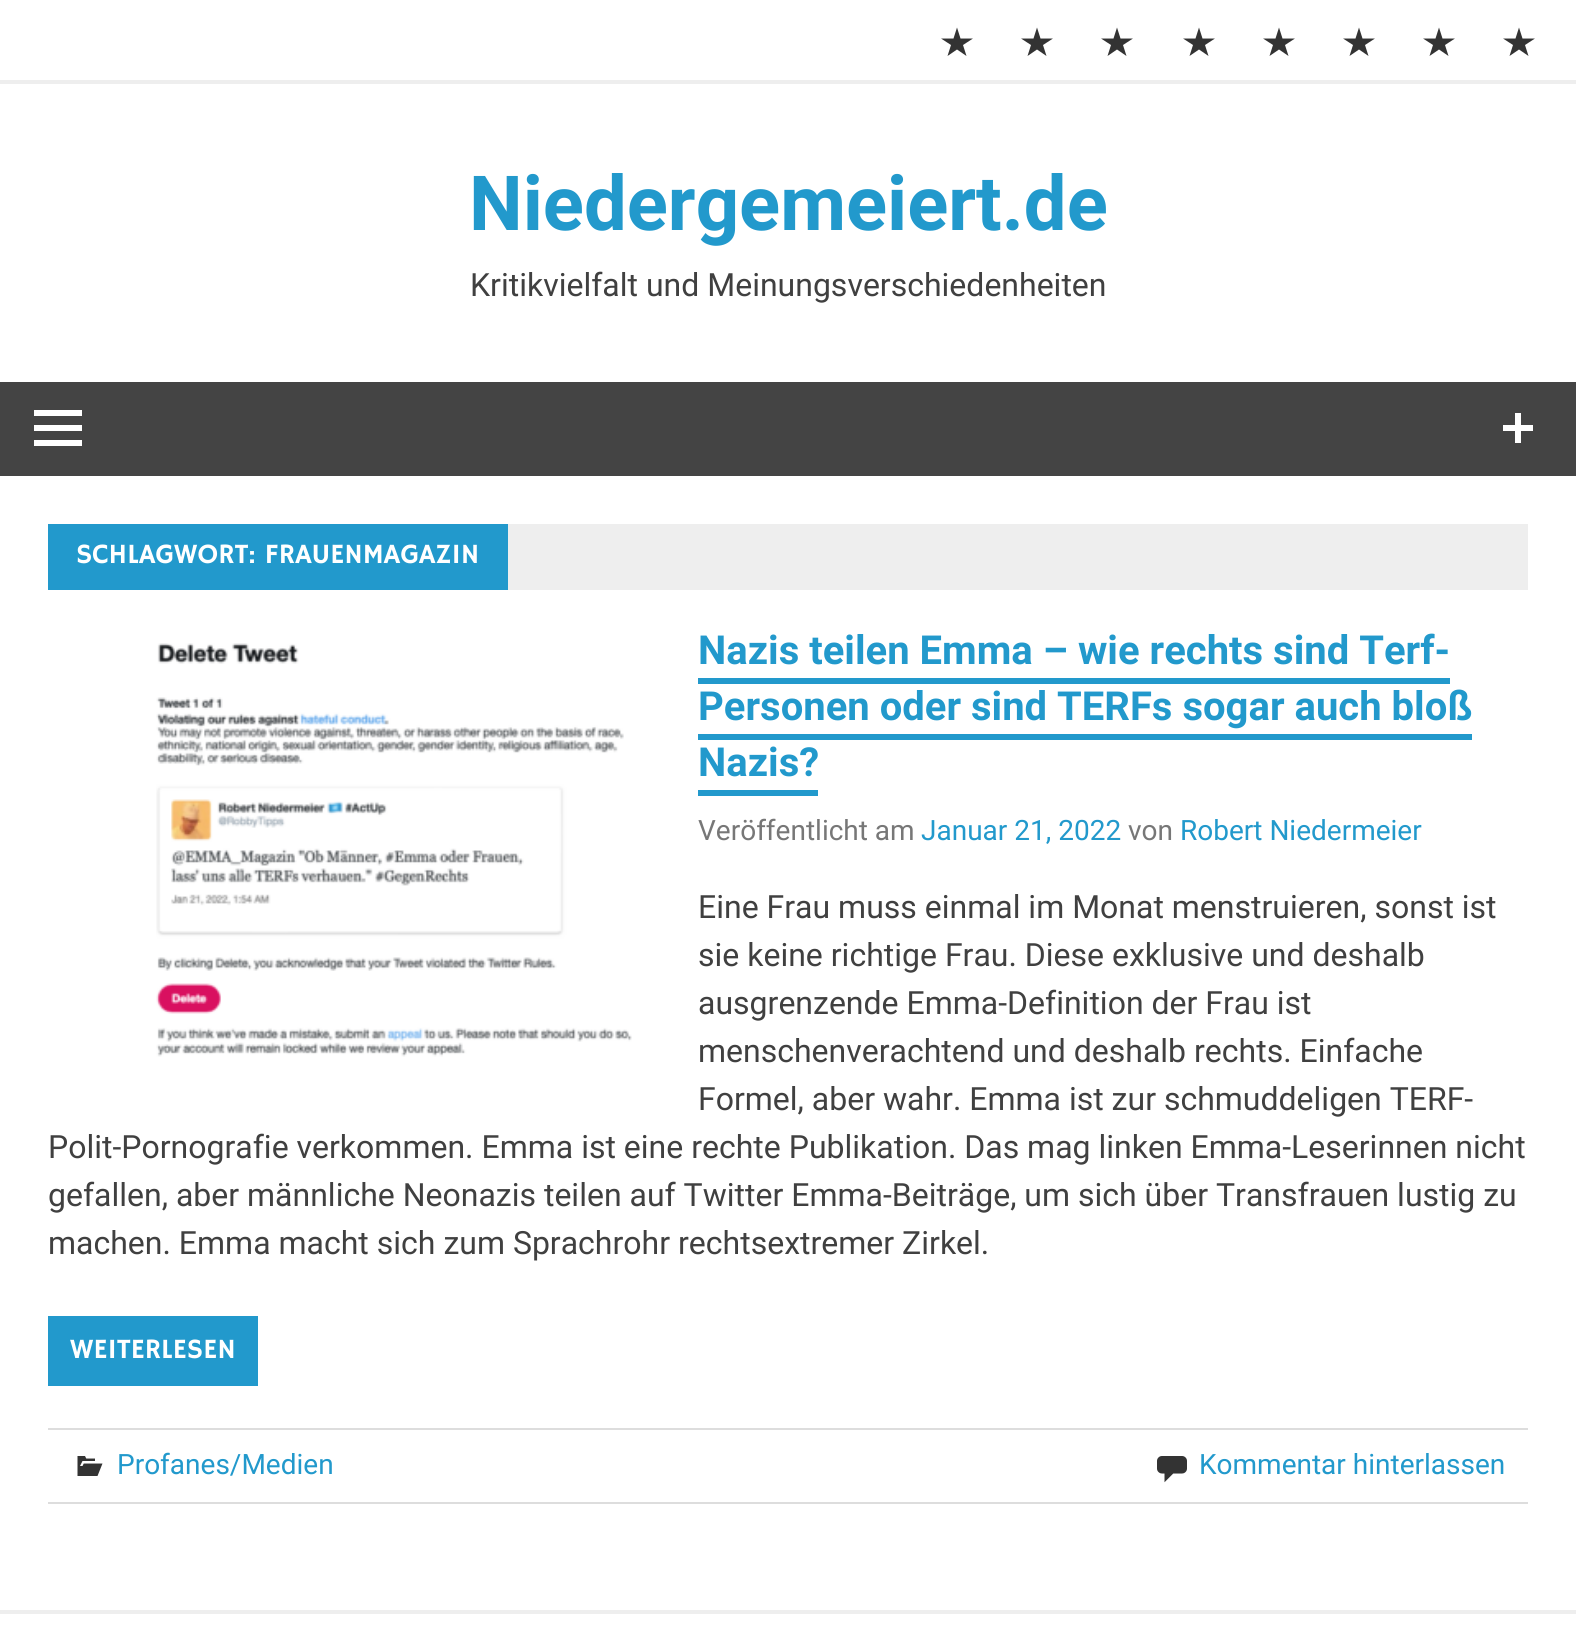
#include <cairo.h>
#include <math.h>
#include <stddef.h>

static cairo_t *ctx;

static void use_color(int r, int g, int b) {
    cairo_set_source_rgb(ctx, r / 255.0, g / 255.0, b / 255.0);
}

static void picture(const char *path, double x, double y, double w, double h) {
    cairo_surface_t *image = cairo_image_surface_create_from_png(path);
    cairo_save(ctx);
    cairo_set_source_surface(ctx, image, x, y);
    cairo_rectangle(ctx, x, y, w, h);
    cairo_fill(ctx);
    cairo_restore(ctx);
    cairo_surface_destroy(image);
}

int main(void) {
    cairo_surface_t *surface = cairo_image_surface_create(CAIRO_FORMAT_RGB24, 1576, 1635);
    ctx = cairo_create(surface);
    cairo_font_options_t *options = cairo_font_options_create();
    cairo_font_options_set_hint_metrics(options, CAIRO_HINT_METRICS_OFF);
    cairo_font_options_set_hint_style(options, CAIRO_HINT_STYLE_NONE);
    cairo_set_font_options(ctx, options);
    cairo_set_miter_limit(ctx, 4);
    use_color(255, 255, 255);
    cairo_paint(ctx);
    use_color(238, 238, 238);
    cairo_rectangle(ctx, 0, 80, 1576, 4);
    cairo_fill(ctx);
    use_color(51, 51, 51);
    cairo_new_path(ctx);
    cairo_move_to(ctx, 973, 38.5);
    cairo_line_to(ctx, 963, 45);
    cairo_line_to(ctx, 966.5, 56);
    cairo_line_to(ctx, 957, 49.5);
    cairo_line_to(ctx, 947.5, 56);
    cairo_line_to(ctx, 951, 45);
    cairo_line_to(ctx, 941, 38.5);
    cairo_line_to(ctx, 953.5, 38.5);
    cairo_line_to(ctx, 957, 27.5);
    cairo_line_to(ctx, 960.5, 38.5);
    cairo_close_path(ctx);
    cairo_fill(ctx);
    cairo_new_path(ctx);
    cairo_move_to(ctx, 1053, 38.5);
    cairo_line_to(ctx, 1043, 45);
    cairo_line_to(ctx, 1046.5, 56);
    cairo_line_to(ctx, 1037, 49.5);
    cairo_line_to(ctx, 1027.5, 56);
    cairo_line_to(ctx, 1031, 45);
    cairo_line_to(ctx, 1021, 38.5);
    cairo_line_to(ctx, 1033.5, 38.5);
    cairo_line_to(ctx, 1037, 27.5);
    cairo_line_to(ctx, 1040.5, 38.5);
    cairo_close_path(ctx);
    cairo_fill(ctx);
    cairo_new_path(ctx);
    cairo_move_to(ctx, 1133, 38.5);
    cairo_line_to(ctx, 1123, 45);
    cairo_line_to(ctx, 1126.5, 56);
    cairo_line_to(ctx, 1117, 49.5);
    cairo_line_to(ctx, 1107.5, 56);
    cairo_line_to(ctx, 1111, 45);
    cairo_line_to(ctx, 1101, 38.5);
    cairo_line_to(ctx, 1113.5, 38.5);
    cairo_line_to(ctx, 1117, 27.5);
    cairo_line_to(ctx, 1120.5, 38.5);
    cairo_close_path(ctx);
    cairo_fill(ctx);
    cairo_new_path(ctx);
    cairo_move_to(ctx, 1215, 38.5);
    cairo_line_to(ctx, 1205, 45);
    cairo_line_to(ctx, 1208.5, 56);
    cairo_line_to(ctx, 1199, 49.5);
    cairo_line_to(ctx, 1189.5, 56);
    cairo_line_to(ctx, 1193, 45);
    cairo_line_to(ctx, 1183, 38.5);
    cairo_line_to(ctx, 1195.5, 38.5);
    cairo_line_to(ctx, 1199, 27.5);
    cairo_line_to(ctx, 1202.5, 38.5);
    cairo_close_path(ctx);
    cairo_fill(ctx);
    cairo_new_path(ctx);
    cairo_move_to(ctx, 1295, 38.5);
    cairo_line_to(ctx, 1285, 45);
    cairo_line_to(ctx, 1288.5, 56);
    cairo_line_to(ctx, 1279, 49.5);
    cairo_line_to(ctx, 1269.5, 56);
    cairo_line_to(ctx, 1273, 45);
    cairo_line_to(ctx, 1263, 38.5);
    cairo_line_to(ctx, 1275.5, 38.5);
    cairo_line_to(ctx, 1279, 27.5);
    cairo_line_to(ctx, 1282.5, 38.5);
    cairo_close_path(ctx);
    cairo_fill(ctx);
    cairo_new_path(ctx);
    cairo_move_to(ctx, 1375, 38.5);
    cairo_line_to(ctx, 1365, 45);
    cairo_line_to(ctx, 1368.5, 56);
    cairo_line_to(ctx, 1359, 49.5);
    cairo_line_to(ctx, 1349.5, 56);
    cairo_line_to(ctx, 1353, 45);
    cairo_line_to(ctx, 1343, 38.5);
    cairo_line_to(ctx, 1355.5, 38.5);
    cairo_line_to(ctx, 1359, 27.5);
    cairo_line_to(ctx, 1362.5, 38.5);
    cairo_close_path(ctx);
    cairo_fill(ctx);
    cairo_new_path(ctx);
    cairo_move_to(ctx, 1455, 38.5);
    cairo_line_to(ctx, 1445, 45);
    cairo_line_to(ctx, 1448.5, 56);
    cairo_line_to(ctx, 1439, 49.5);
    cairo_line_to(ctx, 1429.5, 56);
    cairo_line_to(ctx, 1433, 45);
    cairo_line_to(ctx, 1423, 38.5);
    cairo_line_to(ctx, 1435.5, 38.5);
    cairo_line_to(ctx, 1439, 27.5);
    cairo_line_to(ctx, 1442.5, 38.5);
    cairo_close_path(ctx);
    cairo_fill(ctx);
    cairo_new_path(ctx);
    cairo_move_to(ctx, 1535, 38.5);
    cairo_line_to(ctx, 1525, 45);
    cairo_line_to(ctx, 1528.5, 56);
    cairo_line_to(ctx, 1519, 49.5);
    cairo_line_to(ctx, 1509.5, 56);
    cairo_line_to(ctx, 1513, 45);
    cairo_line_to(ctx, 1503, 38.5);
    cairo_line_to(ctx, 1515.5, 38.5);
    cairo_line_to(ctx, 1519, 27.5);
    cairo_line_to(ctx, 1522.5, 38.5);
    cairo_close_path(ctx);
    cairo_fill(ctx);
    cairo_select_font_face(ctx, "Roboto", CAIRO_FONT_SLANT_NORMAL, CAIRO_FONT_WEIGHT_BOLD);
    cairo_set_font_size(ctx, 76);
    use_color(34, 153, 204);
    cairo_move_to(ctx, 469, 230);
    cairo_show_text(ctx, "Niedergemeiert.de");
    cairo_select_font_face(ctx, "Roboto", CAIRO_FONT_SLANT_NORMAL, CAIRO_FONT_WEIGHT_NORMAL);
    cairo_set_font_size(ctx, 32);
    use_color(64, 64, 64);
    cairo_move_to(ctx, 470, 296);
    cairo_show_text(ctx, "Kritikvielfalt und Meinungsverschiedenheiten");
    use_color(68, 68, 68);
    cairo_rectangle(ctx, 0, 382, 1576, 94);
    cairo_fill(ctx);
    picture("img1.png", 1503, 413, 30, 30);
    use_color(255, 255, 255);
    cairo_new_path(ctx);
    cairo_move_to(ctx, 34, 446);
    cairo_line_to(ctx, 34, 440);
    cairo_line_to(ctx, 82, 440);
    cairo_line_to(ctx, 82, 446);
    cairo_close_path(ctx);
    cairo_move_to(ctx, 34, 410);
    cairo_line_to(ctx, 82, 410);
    cairo_line_to(ctx, 82, 416);
    cairo_line_to(ctx, 34, 416);
    cairo_close_path(ctx);
    cairo_move_to(ctx, 34, 431);
    cairo_line_to(ctx, 34, 425);
    cairo_line_to(ctx, 82, 425);
    cairo_line_to(ctx, 82, 431);
    cairo_close_path(ctx);
    cairo_fill(ctx);
    use_color(238, 238, 238);
    cairo_rectangle(ctx, 508, 524, 1020, 66);
    cairo_fill(ctx);
    use_color(34, 153, 204);
    cairo_rectangle(ctx, 48, 524, 460, 66);
    cairo_fill(ctx);
    cairo_select_font_face(ctx, "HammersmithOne", CAIRO_FONT_SLANT_NORMAL, CAIRO_FONT_WEIGHT_NORMAL);
    cairo_set_font_size(ctx, 28);
    use_color(255, 255, 255);
    cairo_move_to(ctx, 76, 563);
    cairo_show_text(ctx, "SCHLAGWORT: FRAUENMAGAZIN");
    picture("img2.png", 156, 643, 476, 414);
    cairo_select_font_face(ctx, "Roboto", CAIRO_FONT_SLANT_NORMAL, CAIRO_FONT_WEIGHT_BOLD);
    cairo_set_font_size(ctx, 40);
    use_color(34, 153, 204);
    cairo_move_to(ctx, 698, 664);
    cairo_show_text(ctx, "Nazis teilen Emma – wie rechts sind Terf-");
    cairo_move_to(ctx, 698, 720);
    cairo_show_text(ctx, "Personen oder sind TERFs sogar auch bloß");
    cairo_rectangle(ctx, 698, 678, 752, 6);
    cairo_fill(ctx);
    cairo_move_to(ctx, 698, 776);
    cairo_show_text(ctx, "Nazis?");
    cairo_rectangle(ctx, 698, 734, 774, 6);
    cairo_fill(ctx);
    cairo_rectangle(ctx, 698, 790, 120, 6);
    cairo_fill(ctx);
    cairo_select_font_face(ctx, "Roboto", CAIRO_FONT_SLANT_NORMAL, CAIRO_FONT_WEIGHT_NORMAL);
    cairo_set_font_size(ctx, 28);
    use_color(119, 119, 119);
    cairo_move_to(ctx, 698, 840);
    cairo_show_text(ctx, "Veröffentlicht am");
    use_color(34, 153, 204);
    cairo_move_to(ctx, 921, 840);
    cairo_show_text(ctx, "Januar 21, 2022");
    use_color(119, 119, 119);
    cairo_move_to(ctx, 1128, 840);
    cairo_show_text(ctx, "von");
    use_color(34, 153, 204);
    cairo_move_to(ctx, 1180, 840);
    cairo_show_text(ctx, "Robert Niedermeier");
    cairo_set_font_size(ctx, 32);
    use_color(64, 64, 64);
    cairo_move_to(ctx, 698, 918);
    cairo_show_text(ctx, "Eine Frau muss einmal im Monat menstruieren, sonst ist");
    cairo_move_to(ctx, 698, 966);
    cairo_show_text(ctx, "sie keine richtige Frau. Diese exklusive und deshalb");
    cairo_move_to(ctx, 698, 1014);
    cairo_show_text(ctx, "ausgrenzende Emma-Definition der Frau ist");
    cairo_move_to(ctx, 698, 1062);
    cairo_show_text(ctx, "menschenverachtend und deshalb rechts. Einfache");
    cairo_move_to(ctx, 698, 1110);
    cairo_show_text(ctx, "Formel, aber wahr. Emma ist zur schmuddeligen TERF-");
    cairo_move_to(ctx, 48, 1158);
    cairo_show_text(ctx, "Polit-Pornografie verkommen. Emma ist eine rechte Publikation. Das mag linken Emma-Leserinnen nicht");
    cairo_move_to(ctx, 48, 1206);
    cairo_show_text(ctx, "gefallen, aber männliche Neonazis teilen auf Twitter Emma-Beiträge, um sich über Transfrauen lustig zu");
    cairo_move_to(ctx, 48, 1254);
    cairo_show_text(ctx, "machen. Emma macht sich zum Sprachrohr rechtsextremer Zirkel.");
    use_color(34, 153, 204);
    cairo_rectangle(ctx, 48, 1316, 210, 70);
    cairo_fill(ctx);
    cairo_select_font_face(ctx, "HammersmithOne", CAIRO_FONT_SLANT_NORMAL, CAIRO_FONT_WEIGHT_NORMAL);
    cairo_set_font_size(ctx, 28);
    use_color(255, 255, 255);
    cairo_move_to(ctx, 70, 1358);
    cairo_show_text(ctx, "WEITERLESEN");
    use_color(221, 221, 221);
    cairo_rectangle(ctx, 48, 1428, 1480, 2);
    cairo_fill(ctx);
    cairo_rectangle(ctx, 48, 1502, 1480, 2);
    cairo_fill(ctx);
    picture("img3.png", 77, 1456, 26, 20);
    cairo_select_font_face(ctx, "Roboto", CAIRO_FONT_SLANT_NORMAL, CAIRO_FONT_WEIGHT_NORMAL);
    use_color(34, 153, 204);
    cairo_move_to(ctx, 117, 1474);
    cairo_show_text(ctx, "Profanes/Medien");
    picture("img4.png", 1157, 1456, 30, 27);
    cairo_move_to(ctx, 1199, 1474);
    cairo_show_text(ctx, "Kommentar hinterlassen");
    use_color(238, 238, 238);
    cairo_rectangle(ctx, 0, 1610, 1576, 4);
    cairo_fill(ctx);
    cairo_surface_write_to_png(surface, "result.png");
    cairo_font_options_destroy(options);
    cairo_destroy(ctx);
    cairo_surface_destroy(surface);
    return 0;
}
